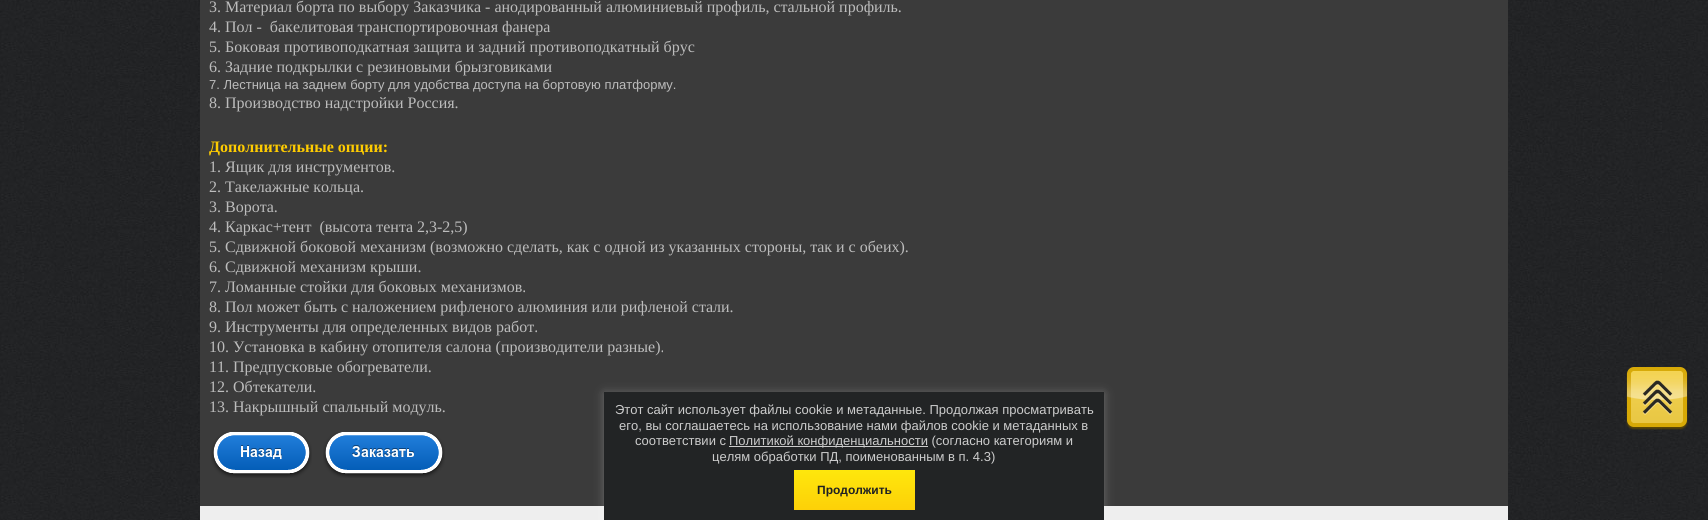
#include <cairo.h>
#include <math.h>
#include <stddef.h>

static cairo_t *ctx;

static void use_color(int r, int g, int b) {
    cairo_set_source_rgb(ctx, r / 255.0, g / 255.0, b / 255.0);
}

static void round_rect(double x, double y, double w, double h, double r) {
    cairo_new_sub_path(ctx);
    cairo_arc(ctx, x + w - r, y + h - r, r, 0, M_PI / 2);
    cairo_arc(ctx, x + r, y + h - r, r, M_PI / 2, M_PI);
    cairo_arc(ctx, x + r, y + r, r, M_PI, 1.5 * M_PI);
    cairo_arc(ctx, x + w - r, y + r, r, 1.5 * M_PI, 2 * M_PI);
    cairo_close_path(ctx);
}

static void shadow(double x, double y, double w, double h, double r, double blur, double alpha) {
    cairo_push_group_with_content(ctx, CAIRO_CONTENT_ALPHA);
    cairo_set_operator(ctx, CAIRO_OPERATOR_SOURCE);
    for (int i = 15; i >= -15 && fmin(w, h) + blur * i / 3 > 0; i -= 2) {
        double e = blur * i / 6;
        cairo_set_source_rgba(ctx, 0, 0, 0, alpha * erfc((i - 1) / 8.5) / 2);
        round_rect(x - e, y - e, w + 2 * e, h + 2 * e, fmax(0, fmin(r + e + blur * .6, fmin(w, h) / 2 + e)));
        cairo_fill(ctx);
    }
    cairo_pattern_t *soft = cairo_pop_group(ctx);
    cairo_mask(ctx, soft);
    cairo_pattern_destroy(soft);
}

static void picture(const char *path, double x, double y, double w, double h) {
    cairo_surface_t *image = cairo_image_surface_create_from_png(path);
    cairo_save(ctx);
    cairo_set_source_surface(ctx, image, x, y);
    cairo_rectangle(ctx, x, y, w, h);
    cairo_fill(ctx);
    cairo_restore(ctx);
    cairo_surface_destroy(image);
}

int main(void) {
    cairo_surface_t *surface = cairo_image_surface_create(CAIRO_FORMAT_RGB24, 1708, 520);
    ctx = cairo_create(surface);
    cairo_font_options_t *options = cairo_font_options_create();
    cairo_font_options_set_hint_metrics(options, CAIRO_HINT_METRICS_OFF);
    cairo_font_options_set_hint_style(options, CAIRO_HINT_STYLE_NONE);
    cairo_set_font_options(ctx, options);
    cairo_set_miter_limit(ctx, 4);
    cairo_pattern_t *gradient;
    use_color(255, 255, 255);
    cairo_paint(ctx);
    picture("img1.png", 0, 0, 1708, 520);
    use_color(59, 59, 59);
    cairo_rectangle(ctx, 200, 0, 1308, 506);
    cairo_fill(ctx);
    cairo_select_font_face(ctx, "Liberation Serif", CAIRO_FONT_SLANT_NORMAL, CAIRO_FONT_WEIGHT_NORMAL);
    cairo_set_font_size(ctx, 16);
    use_color(188, 188, 188);
    cairo_move_to(ctx, 209, 12);
    cairo_show_text(ctx, "3. Материал борта по выбору Заказчика - анодированный алюминиевый профиль, стальной профиль.");
    cairo_move_to(ctx, 209, 32);
    cairo_show_text(ctx, "4. Пол -  бакелитовая транспортировочная фанера");
    cairo_move_to(ctx, 209, 52);
    cairo_show_text(ctx, "5. Боковая противоподкатная защита и задний противоподкатный брус");
    cairo_move_to(ctx, 209, 72);
    cairo_show_text(ctx, "6. Задние подкрылки с резиновыми брызговиками");
    cairo_select_font_face(ctx, "Liberation Sans", CAIRO_FONT_SLANT_NORMAL, CAIRO_FONT_WEIGHT_NORMAL);
    cairo_set_font_size(ctx, 13);
    cairo_move_to(ctx, 209, 89);
    cairo_show_text(ctx, "7. Лестница на заднем борту для удобства доступа на бортовую платформу.");
    cairo_select_font_face(ctx, "Liberation Serif", CAIRO_FONT_SLANT_NORMAL, CAIRO_FONT_WEIGHT_NORMAL);
    cairo_set_font_size(ctx, 16);
    cairo_move_to(ctx, 209, 108);
    cairo_show_text(ctx, "8. Производство надстройки Россия.");
    cairo_select_font_face(ctx, "Liberation Serif", CAIRO_FONT_SLANT_NORMAL, CAIRO_FONT_WEIGHT_BOLD);
    use_color(255, 204, 0);
    cairo_move_to(ctx, 209, 152);
    cairo_show_text(ctx, "Дополнительные опции:");
    cairo_select_font_face(ctx, "Liberation Serif", CAIRO_FONT_SLANT_NORMAL, CAIRO_FONT_WEIGHT_NORMAL);
    use_color(188, 188, 188);
    cairo_move_to(ctx, 209, 172);
    cairo_show_text(ctx, "1. Ящик для инструментов.");
    cairo_move_to(ctx, 209, 192);
    cairo_show_text(ctx, "2. Такелажные кольца.");
    cairo_move_to(ctx, 209, 212);
    cairo_show_text(ctx, "3. Ворота.");
    cairo_move_to(ctx, 209, 232);
    cairo_show_text(ctx, "4. Каркас+тент  (высота тента 2,3-2,5)");
    cairo_move_to(ctx, 209, 252);
    cairo_show_text(ctx, "5. Сдвижной боковой механизм (возможно сделать, как с одной из указанных стороны, так и с обеих).");
    cairo_move_to(ctx, 209, 272);
    cairo_show_text(ctx, "6. Сдвижной механизм крыши.");
    cairo_move_to(ctx, 209, 292);
    cairo_show_text(ctx, "7. Ломанные стойки для боковых механизмов.");
    cairo_move_to(ctx, 209, 312);
    cairo_show_text(ctx, "8. Пол может быть с наложением рифленого алюминия или рифленой стали.");
    cairo_move_to(ctx, 209, 332);
    cairo_show_text(ctx, "9. Инструменты для определенных видов работ.");
    cairo_move_to(ctx, 209, 352);
    cairo_show_text(ctx, "10. Установка в кабину отопителя салона (производители разные).");
    cairo_move_to(ctx, 209, 372);
    cairo_show_text(ctx, "11. Предпусковые обогреватели.");
    cairo_move_to(ctx, 209, 392);
    cairo_show_text(ctx, "12. Обтекатели.");
    cairo_move_to(ctx, 209, 412);
    cairo_show_text(ctx, "13. Накрышный спальный модуль.");
    picture("img2.png", 211, 432, 101, 46);
    picture("img3.png", 323, 432, 122, 46);
    use_color(238, 238, 238);
    cairo_rectangle(ctx, 200, 506, 1308, 14);
    cairo_fill(ctx);
    picture("img4.png", 1626, 367, 62, 63);
    use_color(255, 255, 255);
    shadow(604, 393, 500, 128, 0, 5, 0.25);
    use_color(34, 36, 37);
    cairo_rectangle(ctx, 604, 392, 500, 128);
    cairo_fill(ctx);
    cairo_select_font_face(ctx, "Liberation Sans", CAIRO_FONT_SLANT_NORMAL, CAIRO_FONT_WEIGHT_NORMAL);
    cairo_set_font_size(ctx, 13);
    use_color(204, 204, 204);
    cairo_move_to(ctx, 615, 414);
    cairo_show_text(ctx, "Этот сайт использует файлы cookie и метаданные. Продолжая просматривать");
    cairo_move_to(ctx, 619, 430);
    cairo_show_text(ctx, "его, вы соглашаетесь на использование нами файлов cookie и метаданных в");
    cairo_move_to(ctx, 635, 445);
    cairo_show_text(ctx, "соответствии с");
    cairo_rectangle(ctx, 729, 446, 199, 1);
    cairo_fill(ctx);
    cairo_move_to(ctx, 729, 445);
    cairo_show_text(ctx, "Политикой конфиденциальности (согласно категориям и");
    cairo_move_to(ctx, 712, 461);
    cairo_show_text(ctx, "целям обработки ПД, поименованным в п. 4.3)");
    gradient = cairo_pattern_create_linear(855, 470, 855, 510);
    cairo_pattern_add_color_stop_rgba(gradient, 0, 0.996, 0.906, 0.047, 1);
    cairo_pattern_add_color_stop_rgba(gradient, 1, 0.992, 0.816, 0.031, 1);
    cairo_set_source(ctx, gradient);
    cairo_pattern_destroy(gradient);
    cairo_rectangle(ctx, 794, 470, 121, 40);
    cairo_fill(ctx);
    cairo_select_font_face(ctx, "Liberation Sans", CAIRO_FONT_SLANT_NORMAL, CAIRO_FONT_WEIGHT_BOLD);
    cairo_set_font_size(ctx, 12);
    use_color(31, 33, 35);
    cairo_move_to(ctx, 817, 494);
    cairo_show_text(ctx, "Продолжить");
    cairo_surface_write_to_png(surface, "result.png");
    cairo_font_options_destroy(options);
    cairo_destroy(ctx);
    cairo_surface_destroy(surface);
    return 0;
}
